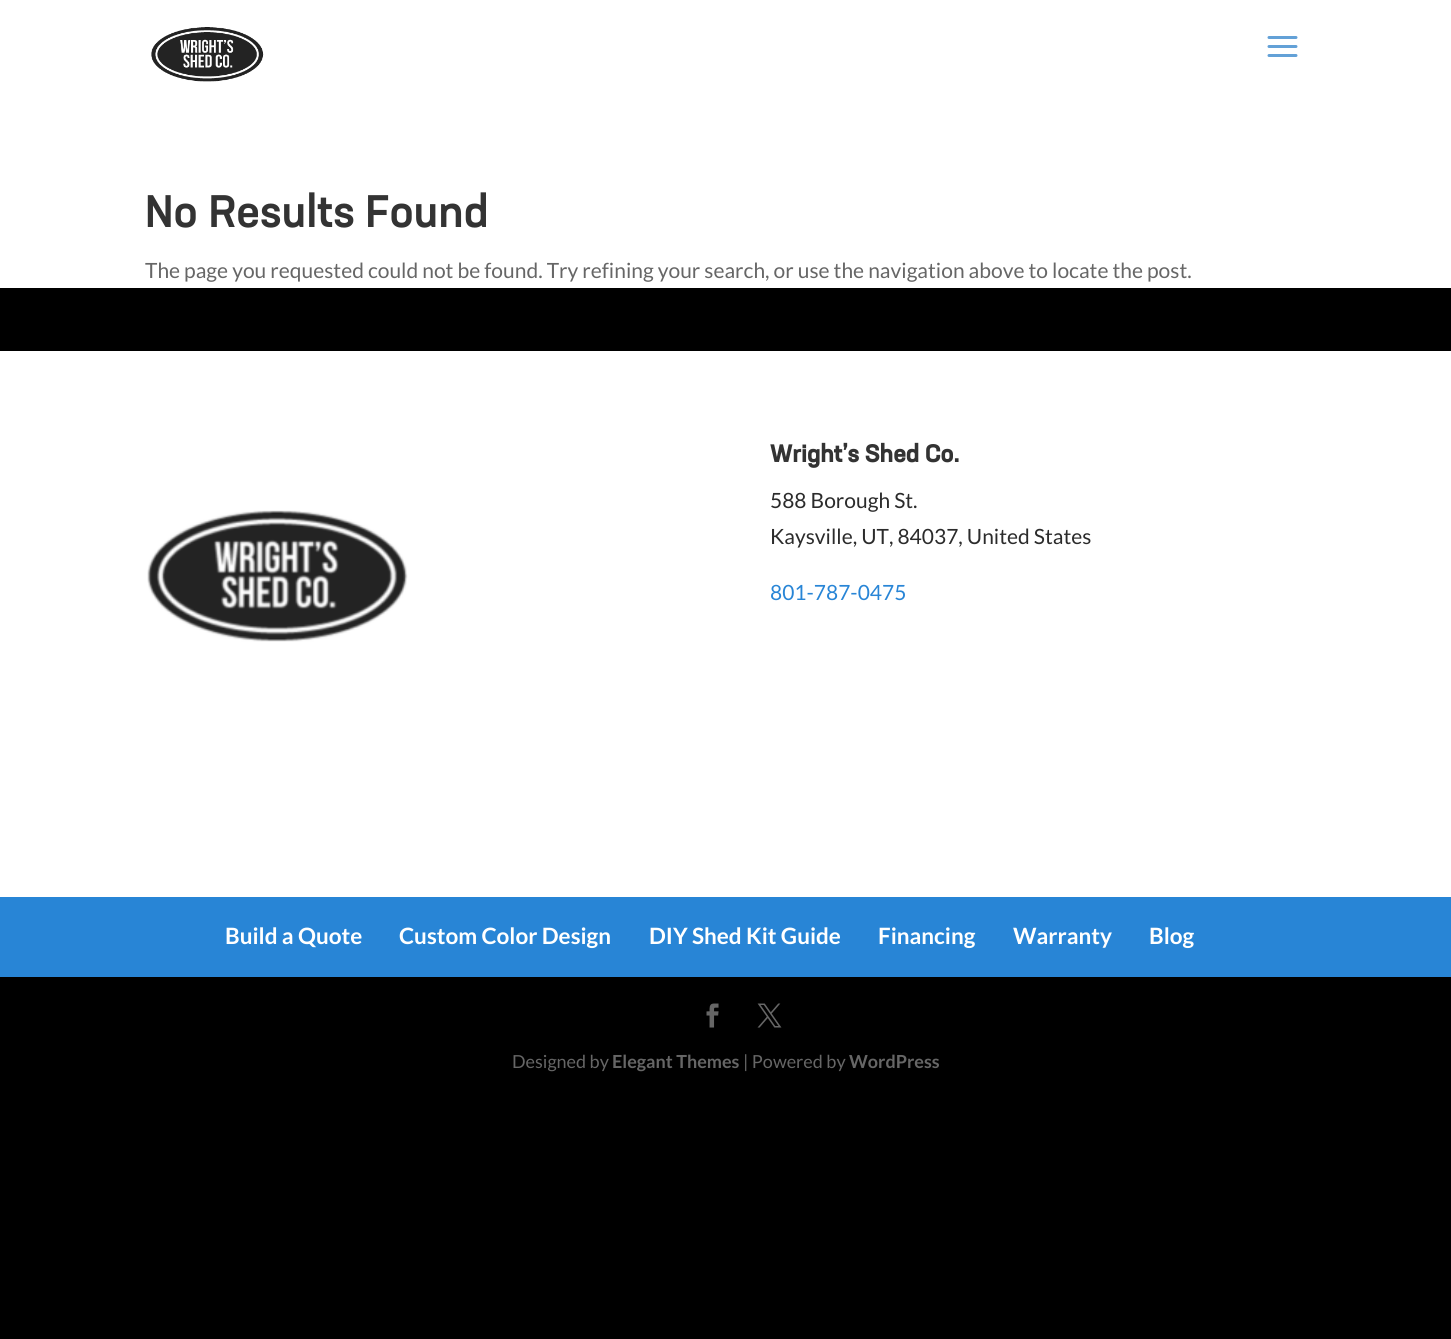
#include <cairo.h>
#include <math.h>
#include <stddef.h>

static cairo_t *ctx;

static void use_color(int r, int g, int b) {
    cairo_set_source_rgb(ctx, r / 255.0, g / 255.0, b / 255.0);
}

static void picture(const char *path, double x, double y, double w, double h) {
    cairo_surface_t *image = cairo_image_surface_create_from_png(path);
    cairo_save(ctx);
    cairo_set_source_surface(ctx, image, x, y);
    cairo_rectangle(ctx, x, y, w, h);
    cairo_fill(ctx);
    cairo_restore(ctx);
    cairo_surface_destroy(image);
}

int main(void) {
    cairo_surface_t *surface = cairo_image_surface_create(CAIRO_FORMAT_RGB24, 1451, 1339);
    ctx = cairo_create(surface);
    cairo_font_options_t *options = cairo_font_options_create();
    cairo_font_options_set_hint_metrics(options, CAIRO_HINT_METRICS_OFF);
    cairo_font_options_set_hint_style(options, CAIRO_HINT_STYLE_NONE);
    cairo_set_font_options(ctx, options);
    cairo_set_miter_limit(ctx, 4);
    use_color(0, 0, 0);
    cairo_paint(ctx);
    use_color(255, 255, 255);
    cairo_rectangle(ctx, 0, 0, 1451, 288);
    cairo_fill(ctx);
    picture("img1.png", 151, 27, 113, 55);
    picture("img2.png", 1267, 36, 31, 21);
    cairo_select_font_face(ctx, "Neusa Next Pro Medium", CAIRO_FONT_SLANT_NORMAL, CAIRO_FONT_WEIGHT_NORMAL);
    cairo_set_font_size(ctx, 45);
    use_color(51, 51, 51);
    cairo_move_to(ctx, 145, 227);
    cairo_show_text(ctx, "No Results Found");
    cairo_select_font_face(ctx, "Lato", CAIRO_FONT_SLANT_NORMAL, CAIRO_FONT_WEIGHT_NORMAL);
    cairo_set_font_size(ctx, 21);
    use_color(102, 102, 102);
    cairo_move_to(ctx, 145, 278);
    cairo_show_text(ctx, "The page you requested could not be found. Try refining your search, or use the navigation above to locate the post.");
    use_color(255, 255, 255);
    cairo_rectangle(ctx, 0, 351, 1451, 546);
    cairo_fill(ctx);
    picture("img3.png", 147, 510, 261, 132);
    cairo_select_font_face(ctx, "Neusa Next Pro", CAIRO_FONT_SLANT_NORMAL, CAIRO_FONT_WEIGHT_BOLD);
    cairo_set_font_size(ctx, 24);
    use_color(51, 51, 51);
    cairo_move_to(ctx, 770, 462);
    cairo_show_text(ctx, "Wright’s Shed Co.");
    cairo_select_font_face(ctx, "Lato", CAIRO_FONT_SLANT_NORMAL, CAIRO_FONT_WEIGHT_NORMAL);
    cairo_set_font_size(ctx, 21);
    use_color(43, 43, 43);
    cairo_move_to(ctx, 770, 508);
    cairo_show_text(ctx, "588 Borough St.");
    cairo_move_to(ctx, 770, 544);
    cairo_show_text(ctx, "Kaysville, UT, 84037, United States");
    use_color(40, 133, 214);
    cairo_move_to(ctx, 770, 600);
    cairo_show_text(ctx, "801-787-0475");
    cairo_rectangle(ctx, 0, 897, 1451, 80);
    cairo_fill(ctx);
    cairo_select_font_face(ctx, "Lato", CAIRO_FONT_SLANT_NORMAL, CAIRO_FONT_WEIGHT_BOLD);
    cairo_set_font_size(ctx, 22.5);
    use_color(255, 255, 255);
    cairo_move_to(ctx, 225, 944);
    cairo_show_text(ctx, "Build a Quote");
    cairo_move_to(ctx, 399, 944);
    cairo_show_text(ctx, "Custom Color Design");
    cairo_move_to(ctx, 649, 944);
    cairo_show_text(ctx, "DIY Shed Kit Guide");
    cairo_move_to(ctx, 878, 944);
    cairo_show_text(ctx, "Financing");
    cairo_move_to(ctx, 1013, 944);
    cairo_show_text(ctx, "Warranty");
    cairo_move_to(ctx, 1149, 944);
    cairo_show_text(ctx, "Blog");
    picture("img4.png", 706, 1003, 13, 25);
    picture("img5.png", 757, 1003, 25, 25);
    cairo_select_font_face(ctx, "Lato", CAIRO_FONT_SLANT_NORMAL, CAIRO_FONT_WEIGHT_NORMAL);
    cairo_set_font_size(ctx, 18);
    use_color(102, 102, 102);
    cairo_move_to(ctx, 512, 1068);
    cairo_show_text(ctx, "Designed by");
    cairo_select_font_face(ctx, "Lato", CAIRO_FONT_SLANT_NORMAL, CAIRO_FONT_WEIGHT_BOLD);
    cairo_move_to(ctx, 612, 1068);
    cairo_show_text(ctx, "Elegant Themes");
    cairo_select_font_face(ctx, "Lato", CAIRO_FONT_SLANT_NORMAL, CAIRO_FONT_WEIGHT_NORMAL);
    cairo_move_to(ctx, 743, 1068);
    cairo_show_text(ctx, "| Powered by");
    cairo_select_font_face(ctx, "Lato", CAIRO_FONT_SLANT_NORMAL, CAIRO_FONT_WEIGHT_BOLD);
    cairo_move_to(ctx, 849, 1068);
    cairo_show_text(ctx, "WordPress");
    cairo_surface_write_to_png(surface, "result.png");
    cairo_font_options_destroy(options);
    cairo_destroy(ctx);
    cairo_surface_destroy(surface);
    return 0;
}
